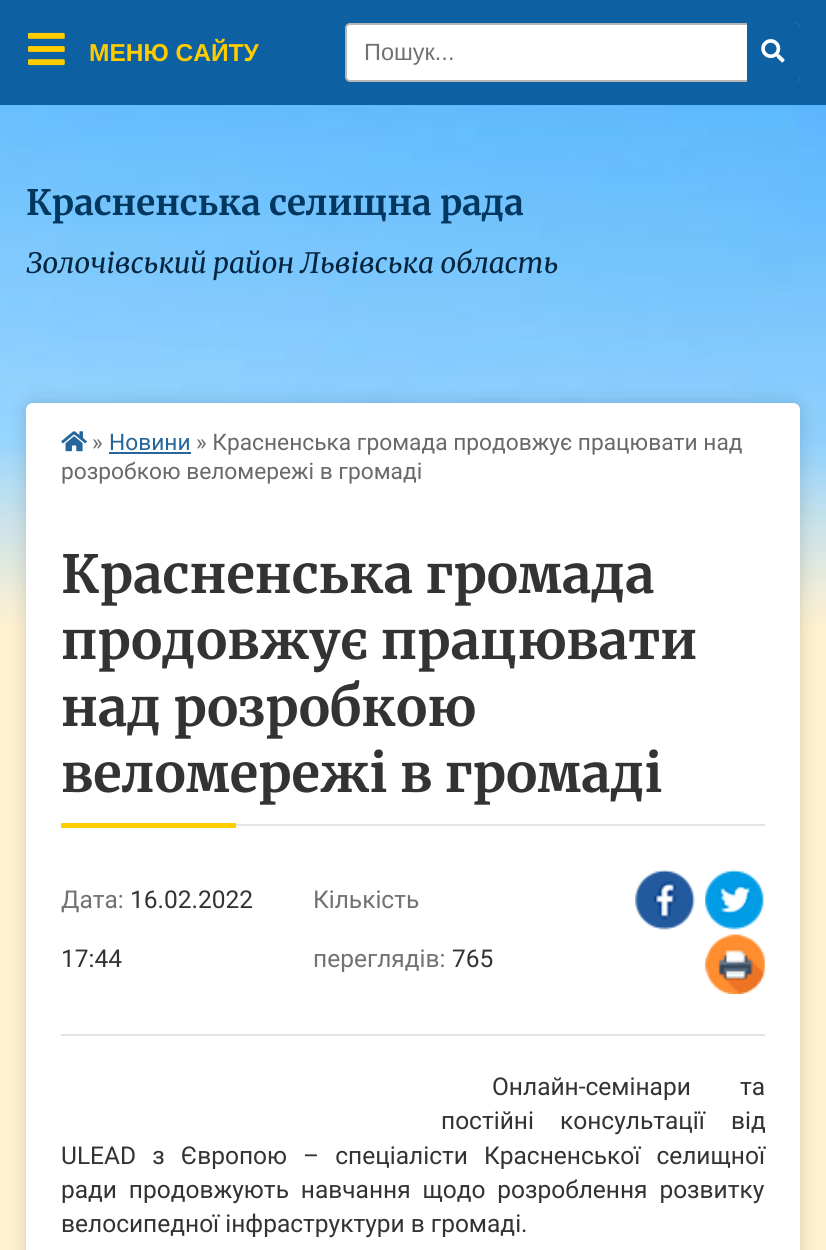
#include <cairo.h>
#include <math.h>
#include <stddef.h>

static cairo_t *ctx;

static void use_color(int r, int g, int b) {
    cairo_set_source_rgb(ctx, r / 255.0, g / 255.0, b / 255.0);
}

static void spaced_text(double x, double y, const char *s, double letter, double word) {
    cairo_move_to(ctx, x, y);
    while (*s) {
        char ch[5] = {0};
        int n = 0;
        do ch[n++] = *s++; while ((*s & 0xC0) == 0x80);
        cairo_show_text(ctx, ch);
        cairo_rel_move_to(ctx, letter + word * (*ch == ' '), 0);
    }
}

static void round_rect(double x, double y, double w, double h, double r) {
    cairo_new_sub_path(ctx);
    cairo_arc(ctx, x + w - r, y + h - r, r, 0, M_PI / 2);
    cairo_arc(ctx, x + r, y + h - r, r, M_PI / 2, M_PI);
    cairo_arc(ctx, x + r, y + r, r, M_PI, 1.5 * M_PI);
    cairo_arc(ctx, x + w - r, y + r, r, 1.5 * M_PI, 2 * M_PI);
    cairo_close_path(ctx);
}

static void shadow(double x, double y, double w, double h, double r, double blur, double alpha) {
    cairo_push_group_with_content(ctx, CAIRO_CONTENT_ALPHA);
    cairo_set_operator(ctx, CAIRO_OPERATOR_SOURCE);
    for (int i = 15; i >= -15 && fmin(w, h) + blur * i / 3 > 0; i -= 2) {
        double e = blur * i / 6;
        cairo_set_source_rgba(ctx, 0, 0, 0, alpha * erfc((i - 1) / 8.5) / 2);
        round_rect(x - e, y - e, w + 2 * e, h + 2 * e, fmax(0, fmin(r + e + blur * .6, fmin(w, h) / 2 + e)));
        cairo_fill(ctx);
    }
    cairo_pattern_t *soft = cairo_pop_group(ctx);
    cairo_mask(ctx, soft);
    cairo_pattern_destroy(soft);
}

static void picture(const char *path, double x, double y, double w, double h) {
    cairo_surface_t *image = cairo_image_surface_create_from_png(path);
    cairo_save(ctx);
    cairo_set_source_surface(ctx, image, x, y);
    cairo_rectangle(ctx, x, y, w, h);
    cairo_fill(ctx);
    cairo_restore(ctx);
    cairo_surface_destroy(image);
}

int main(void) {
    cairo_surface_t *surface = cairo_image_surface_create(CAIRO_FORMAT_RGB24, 826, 1250);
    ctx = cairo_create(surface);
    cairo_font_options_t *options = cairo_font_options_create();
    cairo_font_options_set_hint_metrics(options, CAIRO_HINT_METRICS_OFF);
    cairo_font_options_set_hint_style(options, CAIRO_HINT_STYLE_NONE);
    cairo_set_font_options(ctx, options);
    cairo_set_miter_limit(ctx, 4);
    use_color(255, 255, 255);
    cairo_paint(ctx);
    picture("img1.png", 0, 105, 826, 1145);
    use_color(0, 0, 0);
    shadow(26, 403, 774, 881, 7, 9, 0.15);
    use_color(255, 255, 255);
    round_rect(26, 403, 774, 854, 7);
    cairo_fill(ctx);
    use_color(13, 97, 162);
    cairo_rectangle(ctx, 0, 0, 826, 105);
    cairo_fill(ctx);
    picture("img2.png", 28, 32, 37, 34);
    cairo_select_font_face(ctx, "Liberation Sans", CAIRO_FONT_SLANT_NORMAL, CAIRO_FONT_WEIGHT_BOLD);
    cairo_set_font_size(ctx, 24.5);
    use_color(255, 204, 0);
    cairo_move_to(ctx, 89, 61);
    cairo_show_text(ctx, "МЕНЮ САЙТУ");
    picture("img3.png", 61, 431, 26, 21);
    cairo_select_font_face(ctx, "Roboto", CAIRO_FONT_SLANT_NORMAL, CAIRO_FONT_WEIGHT_NORMAL);
    cairo_set_font_size(ctx, 22.75);
    use_color(105, 105, 105);
    cairo_move_to(ctx, 92, 450);
    cairo_show_text(ctx, "»");
    use_color(37, 102, 156);
    cairo_move_to(ctx, 109, 450);
    cairo_show_text(ctx, "Новини");
    cairo_rectangle(ctx, 109, 452, 82, 2);
    cairo_fill(ctx);
    use_color(105, 105, 105);
    cairo_move_to(ctx, 196, 450);
    cairo_show_text(ctx, "» Красненська громада продовжує працювати над");
    cairo_move_to(ctx, 61, 479);
    cairo_show_text(ctx, "розробкою веломережі в громаді");
    use_color(229, 229, 229);
    cairo_rectangle(ctx, 236, 824, 529, 2);
    cairo_fill(ctx);
    cairo_select_font_face(ctx, "Merriweather Light", CAIRO_FONT_SLANT_NORMAL, CAIRO_FONT_WEIGHT_NORMAL);
    cairo_set_font_size(ctx, 52.5);
    use_color(51, 51, 51);
    cairo_move_to(ctx, 61, 593);
    cairo_show_text(ctx, "Красненська громада");
    cairo_move_to(ctx, 61, 659);
    cairo_show_text(ctx, "продовжує працювати");
    cairo_move_to(ctx, 61, 726);
    cairo_show_text(ctx, "над розробкою");
    cairo_move_to(ctx, 61, 792);
    cairo_show_text(ctx, "веломережі в громаді");
    use_color(255, 204, 0);
    cairo_rectangle(ctx, 61, 823, 175, 5);
    cairo_fill(ctx);
    cairo_select_font_face(ctx, "Roboto", CAIRO_FONT_SLANT_NORMAL, CAIRO_FONT_WEIGHT_NORMAL);
    cairo_set_font_size(ctx, 24.5);
    use_color(114, 114, 114);
    cairo_move_to(ctx, 61, 908);
    cairo_show_text(ctx, "Дата:");
    use_color(51, 51, 51);
    cairo_move_to(ctx, 130, 908);
    cairo_show_text(ctx, "16.02.2022");
    cairo_move_to(ctx, 61, 967);
    cairo_show_text(ctx, "17:44");
    use_color(114, 114, 114);
    cairo_move_to(ctx, 313, 908);
    cairo_show_text(ctx, "Кількість");
    cairo_move_to(ctx, 313, 967);
    cairo_show_text(ctx, "переглядів:");
    use_color(51, 51, 51);
    cairo_move_to(ctx, 452, 967);
    cairo_show_text(ctx, "765");
    picture("img4.png", 635, 869, 60, 61);
    picture("img5.png", 705, 869, 59, 61);
    picture("img6.png", 705, 934, 60, 60);
    use_color(229, 229, 229);
    cairo_rectangle(ctx, 61, 1034, 704, 2);
    cairo_fill(ctx);
    use_color(51, 51, 51);
    spaced_text(492, 1095, "Онлайн-семінари та", 0, 43);
    spaced_text(441, 1129, "постійні консультації від", 0, 20);
    spaced_text(61, 1164, "ULEAD з Європою – спеціалісти Красненської селищної", 0, 10);
    spaced_text(61, 1198, "ради продовжують навчання щодо розроблення розвитку", 0, 5.75);
    cairo_move_to(ctx, 61, 1232);
    cairo_show_text(ctx, "велосипедної інфраструктури в громаді.");
    use_color(255, 255, 255);
    round_rect(346, 24, 453, 57, 4);
    cairo_fill_preserve(ctx);
    use_color(183, 183, 183);
    cairo_stroke(ctx);
    cairo_select_font_face(ctx, "Liberation Sans", CAIRO_FONT_SLANT_NORMAL, CAIRO_FONT_WEIGHT_NORMAL);
    cairo_set_font_size(ctx, 23.5);
    use_color(114, 114, 114);
    cairo_move_to(ctx, 364, 60);
    cairo_show_text(ctx, "Пошук...");
    use_color(13, 97, 162);
    cairo_new_path(ctx);
    cairo_move_to(ctx, 747, 23);
    cairo_line_to(ctx, 795, 23);
    cairo_curve_to(ctx, 798, 23, 800, 25, 800, 28);
    cairo_line_to(ctx, 800, 77);
    cairo_curve_to(ctx, 800, 80, 798, 82, 795, 82);
    cairo_line_to(ctx, 747, 82);
    cairo_close_path(ctx);
    cairo_fill(ctx);
    picture("img7.png", 761, 39, 24, 24);
    cairo_select_font_face(ctx, "Merriweather Light", CAIRO_FONT_SLANT_NORMAL, CAIRO_FONT_WEIGHT_NORMAL);
    cairo_set_font_size(ctx, 35);
    use_color(2, 55, 95);
    cairo_move_to(ctx, 26, 215);
    cairo_show_text(ctx, "Красненська селищна рада");
    cairo_select_font_face(ctx, "Merriweather Light", CAIRO_FONT_SLANT_ITALIC, CAIRO_FONT_WEIGHT_NORMAL);
    cairo_set_font_size(ctx, 28);
    use_color(5, 37, 62);
    cairo_move_to(ctx, 26, 273);
    cairo_show_text(ctx, "Золочівський район Львівська область");
    cairo_surface_write_to_png(surface, "result.png");
    cairo_font_options_destroy(options);
    cairo_destroy(ctx);
    cairo_surface_destroy(surface);
    return 0;
}
